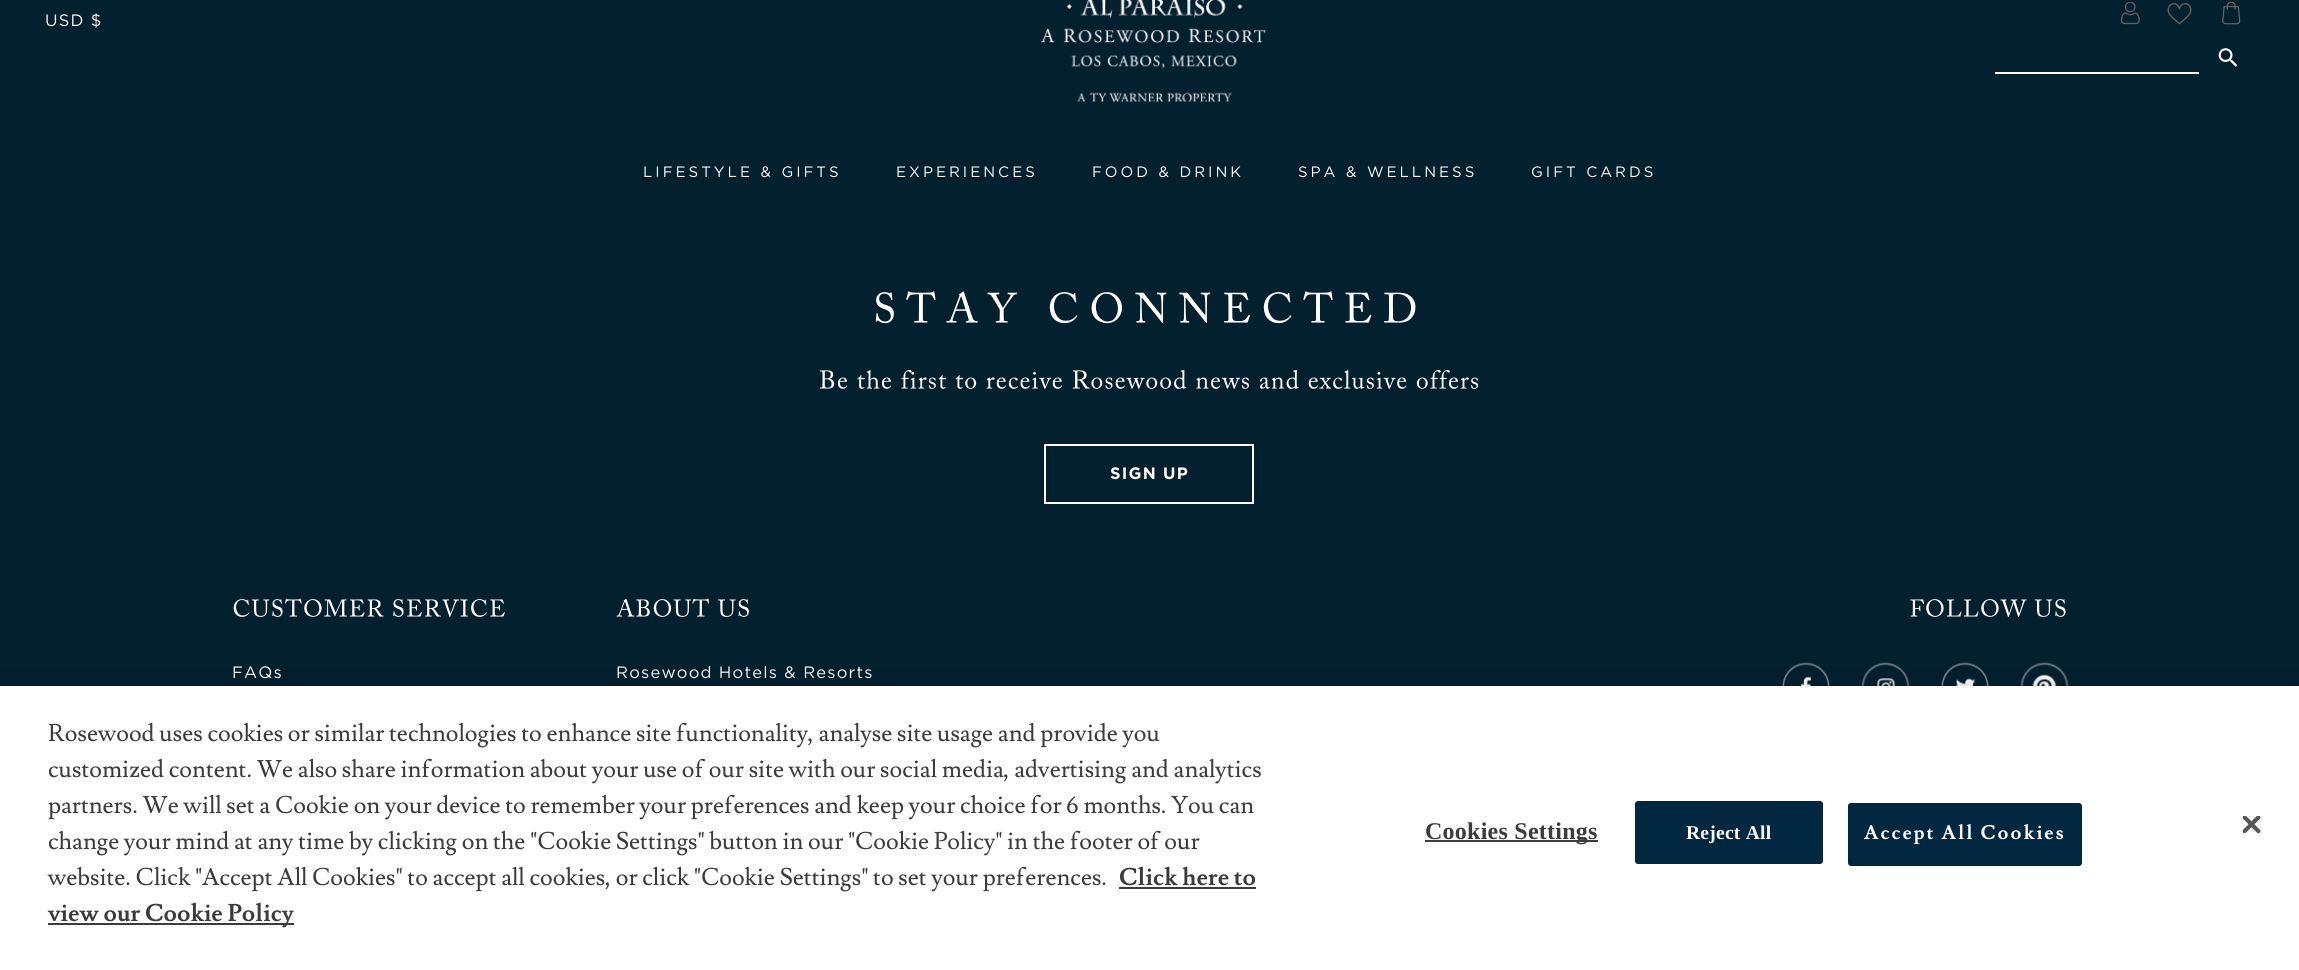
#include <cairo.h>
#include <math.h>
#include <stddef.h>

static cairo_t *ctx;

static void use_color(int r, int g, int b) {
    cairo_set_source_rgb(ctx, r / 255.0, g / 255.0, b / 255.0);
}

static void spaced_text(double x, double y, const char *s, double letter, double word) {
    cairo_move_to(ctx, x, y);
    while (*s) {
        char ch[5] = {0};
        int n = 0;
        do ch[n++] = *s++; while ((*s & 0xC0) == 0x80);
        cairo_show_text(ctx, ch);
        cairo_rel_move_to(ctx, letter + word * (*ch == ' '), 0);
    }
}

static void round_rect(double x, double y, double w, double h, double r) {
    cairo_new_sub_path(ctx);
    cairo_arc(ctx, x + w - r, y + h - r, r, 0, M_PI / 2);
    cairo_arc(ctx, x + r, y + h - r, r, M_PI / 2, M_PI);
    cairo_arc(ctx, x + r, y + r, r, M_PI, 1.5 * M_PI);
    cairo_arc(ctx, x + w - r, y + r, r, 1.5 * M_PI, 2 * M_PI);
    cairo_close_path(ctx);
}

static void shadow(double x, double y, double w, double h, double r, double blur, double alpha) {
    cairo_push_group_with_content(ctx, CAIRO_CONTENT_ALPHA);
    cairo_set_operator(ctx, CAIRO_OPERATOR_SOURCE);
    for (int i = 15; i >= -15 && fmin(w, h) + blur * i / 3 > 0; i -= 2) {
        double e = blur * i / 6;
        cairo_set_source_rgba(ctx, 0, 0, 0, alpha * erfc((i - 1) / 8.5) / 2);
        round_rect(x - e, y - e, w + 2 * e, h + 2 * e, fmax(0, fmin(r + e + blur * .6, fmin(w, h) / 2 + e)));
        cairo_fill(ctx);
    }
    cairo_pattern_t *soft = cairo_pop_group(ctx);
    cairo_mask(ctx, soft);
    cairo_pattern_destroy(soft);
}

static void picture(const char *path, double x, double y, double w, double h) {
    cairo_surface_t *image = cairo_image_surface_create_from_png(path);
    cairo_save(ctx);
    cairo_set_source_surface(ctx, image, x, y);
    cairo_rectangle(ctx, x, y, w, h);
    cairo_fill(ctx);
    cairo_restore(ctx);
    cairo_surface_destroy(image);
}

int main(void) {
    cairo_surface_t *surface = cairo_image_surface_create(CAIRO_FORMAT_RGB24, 2299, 970);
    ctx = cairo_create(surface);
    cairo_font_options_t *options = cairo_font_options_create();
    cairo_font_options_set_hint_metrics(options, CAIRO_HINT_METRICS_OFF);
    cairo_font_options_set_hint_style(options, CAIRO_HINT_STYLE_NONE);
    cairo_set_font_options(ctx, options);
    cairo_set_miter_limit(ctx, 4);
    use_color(3, 32, 47);
    cairo_paint(ctx);
    cairo_select_font_face(ctx, "Gotham", CAIRO_FONT_SLANT_NORMAL, CAIRO_FONT_WEIGHT_NORMAL);
    cairo_set_font_size(ctx, 16.5);
    use_color(255, 255, 255);
    spaced_text(45, 26, "USD $", 1.2, 0);
    picture("img1.png", 1040, 0, 226, 102);
    picture("img2.png", 2120, 2, 20, 23);
    picture("img3.png", 2167, 3, 25, 22);
    picture("img4.png", 2222, 2, 19, 23);
    use_color(253, 250, 246);
    cairo_rectangle(ctx, 1995, 72, 206, 2);
    cairo_fill(ctx);
    use_color(3, 32, 47);
    cairo_rectangle(ctx, 2199, 72, 2, 2);
    cairo_fill(ctx);
    picture("img5.png", 2218, 48, 20, 19);
    cairo_set_font_size(ctx, 15);
    use_color(255, 255, 255);
    spaced_text(643, 177, "LIFESTYLE & GIFTS", 3, 0);
    spaced_text(896, 177, "EXPERIENCES", 3, 0);
    spaced_text(1092, 177, "FOOD & DRINK", 3, 0);
    spaced_text(1298, 177, "SPA & WELLNESS", 3, 0);
    spaced_text(1531, 177, "GIFT CARDS", 3, 0);
    picture("img6.png", 875, 291, 541, 33);
    picture("img7.png", 819, 370, 660, 19);
    cairo_rectangle(ctx, 1045, 445, 208, 58);
    cairo_stroke(ctx);
    cairo_select_font_face(ctx, "Gotham", CAIRO_FONT_SLANT_NORMAL, CAIRO_FONT_WEIGHT_BOLD);
    cairo_set_font_size(ctx, 16.5);
    spaced_text(1110, 479, "SIGN UP", 1.2, 0);
    picture("img8.png", 233, 598, 272, 19);
    cairo_select_font_face(ctx, "Gotham", CAIRO_FONT_SLANT_NORMAL, CAIRO_FONT_WEIGHT_NORMAL);
    spaced_text(232, 678, "FAQs", 1.2, 0);
    picture("img9.png", 616, 598, 133, 19);
    spaced_text(616, 678, "Rosewood Hotels & Resorts", 1.2, 0);
    picture("img10.png", 1910, 599, 156, 18);
    picture("img11.png", 1782, 662, 48, 24);
    picture("img12.png", 1861, 662, 49, 24);
    picture("img13.png", 1941, 662, 48, 24);
    picture("img14.png", 2020, 662, 49, 24);
    use_color(0, 0, 0);
    shadow(0, 686, 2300, 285, 0, 13.5, 0.2);
    use_color(255, 255, 255);
    cairo_rectangle(ctx, 0, 686, 2299, 284);
    cairo_fill(ctx);
    cairo_select_font_face(ctx, "Lusitana", CAIRO_FONT_SLANT_NORMAL, CAIRO_FONT_WEIGHT_NORMAL);
    cairo_set_font_size(ctx, 24);
    use_color(60, 60, 60);
    cairo_move_to(ctx, 48, 741);
    cairo_show_text(ctx, "Rosewood uses cookies or similar technologies to enhance site functionality, analyse site usage and provide you");
    cairo_move_to(ctx, 48, 777);
    cairo_show_text(ctx, "customized content. We also share information about your use of our site with our social media, advertising and analytics");
    cairo_move_to(ctx, 48, 813);
    cairo_show_text(ctx, "partners. We will set a Cookie on your device to remember your preferences and keep your choice for 6 months. You can");
    cairo_move_to(ctx, 48, 849);
    cairo_show_text(ctx, "change your mind at any time by clicking on the \"Cookie Settings\" button in our \"Cookie Policy\" in the footer of our");
    cairo_move_to(ctx, 48, 885);
    cairo_show_text(ctx, "website. Click \"Accept All Cookies\" to accept all cookies, or click \"Cookie Settings\" to set your preferences.");
    cairo_select_font_face(ctx, "Lusitana", CAIRO_FONT_SLANT_NORMAL, CAIRO_FONT_WEIGHT_BOLD);
    cairo_move_to(ctx, 1119, 885);
    cairo_show_text(ctx, "Click here to");
    cairo_rectangle(ctx, 1119, 887, 137, 2);
    cairo_fill(ctx);
    cairo_rectangle(ctx, 48, 923, 246, 2);
    cairo_fill(ctx);
    cairo_move_to(ctx, 48, 921);
    cairo_show_text(ctx, "view our Cookie Policy");
    cairo_rectangle(ctx, 1425, 840, 173, 2);
    cairo_fill(ctx);
    cairo_select_font_face(ctx, "Liberation Serif", CAIRO_FONT_SLANT_NORMAL, CAIRO_FONT_WEIGHT_BOLD);
    spaced_text(1425, 839, "Cookies Settings", 0.25, 0);
    use_color(2, 39, 65);
    round_rect(1636, 802, 186, 61, 2);
    cairo_fill_preserve(ctx);
    cairo_stroke(ctx);
    cairo_set_font_size(ctx, 19.5);
    use_color(255, 255, 255);
    spaced_text(1686, 839, "Reject All", 0.25, 0);
    use_color(2, 39, 65);
    round_rect(1849, 804, 232, 61, 2);
    cairo_fill_preserve(ctx);
    cairo_stroke(ctx);
    cairo_select_font_face(ctx, "Lusitana", CAIRO_FONT_SLANT_NORMAL, CAIRO_FONT_WEIGHT_BOLD);
    use_color(255, 255, 255);
    spaced_text(1864, 839, "Accept All Cookies", 2, 0);
    picture("img15.png", 2243, 816, 18, 18);
    cairo_surface_write_to_png(surface, "result.png");
    cairo_font_options_destroy(options);
    cairo_destroy(ctx);
    cairo_surface_destroy(surface);
    return 0;
}
